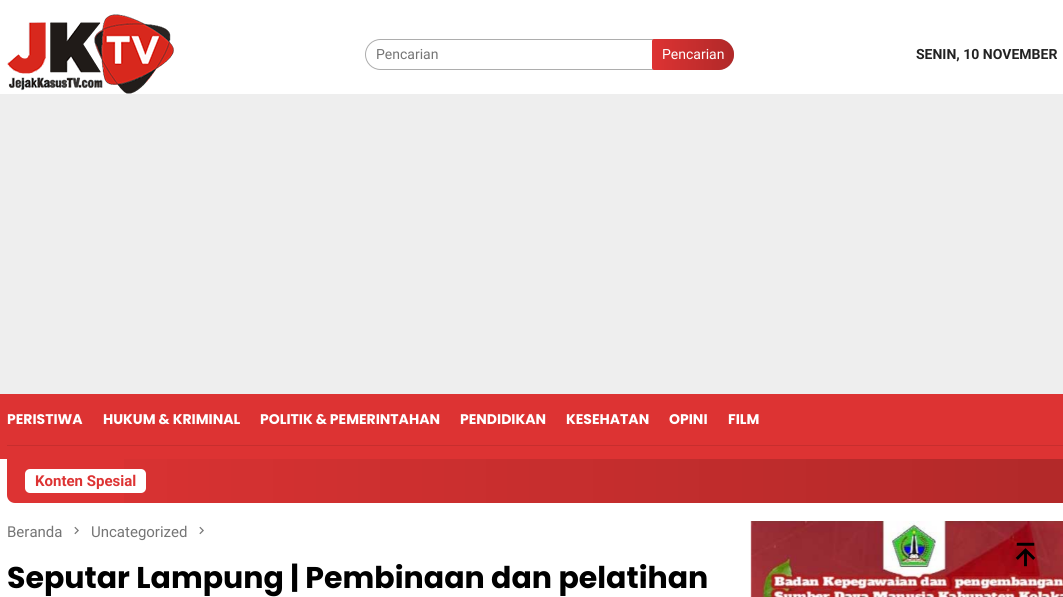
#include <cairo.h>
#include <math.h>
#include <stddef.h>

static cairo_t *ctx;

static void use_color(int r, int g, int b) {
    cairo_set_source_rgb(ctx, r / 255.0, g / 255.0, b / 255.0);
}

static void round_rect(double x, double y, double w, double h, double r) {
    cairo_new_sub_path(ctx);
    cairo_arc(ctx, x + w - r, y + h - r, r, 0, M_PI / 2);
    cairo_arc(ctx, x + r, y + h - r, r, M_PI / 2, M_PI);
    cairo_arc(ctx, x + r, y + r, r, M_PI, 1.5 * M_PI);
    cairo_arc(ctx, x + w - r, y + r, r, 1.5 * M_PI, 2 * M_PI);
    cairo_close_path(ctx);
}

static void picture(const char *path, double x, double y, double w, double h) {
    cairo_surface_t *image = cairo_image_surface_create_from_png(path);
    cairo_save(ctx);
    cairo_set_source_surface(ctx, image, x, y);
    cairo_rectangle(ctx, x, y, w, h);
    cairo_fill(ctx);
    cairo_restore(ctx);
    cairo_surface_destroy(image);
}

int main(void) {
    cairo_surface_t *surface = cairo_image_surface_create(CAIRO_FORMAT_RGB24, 1063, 597);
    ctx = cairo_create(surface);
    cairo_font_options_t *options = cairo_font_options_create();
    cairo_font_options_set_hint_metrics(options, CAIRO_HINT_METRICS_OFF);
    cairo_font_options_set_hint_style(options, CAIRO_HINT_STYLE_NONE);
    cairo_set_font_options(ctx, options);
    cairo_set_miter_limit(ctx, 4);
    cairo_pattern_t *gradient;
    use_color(238, 238, 238);
    cairo_paint(ctx);
    use_color(255, 255, 255);
    cairo_rectangle(ctx, 0, 0, 1063, 94);
    cairo_fill(ctx);
    picture("img1.png", 7, 14, 167, 80);
    round_rect(365.5, 39.5, 368, 30, 15);
    use_color(173, 173, 173);
    cairo_set_line_width(ctx, 1);
    cairo_stroke(ctx);
    cairo_select_font_face(ctx, "Roboto", CAIRO_FONT_SLANT_NORMAL, CAIRO_FONT_WEIGHT_NORMAL);
    cairo_set_font_size(ctx, 14);
    use_color(117, 117, 117);
    cairo_move_to(ctx, 376, 59);
    cairo_show_text(ctx, "Pencarian");
    use_color(221, 51, 51);
    cairo_new_path(ctx);
    cairo_move_to(ctx, 654, 39);
    cairo_line_to(ctx, 718.5, 39);
    cairo_curve_to(ctx, 727, 39, 734, 46, 734, 54.5);
    cairo_curve_to(ctx, 734, 63, 727, 70, 718.5, 70);
    cairo_line_to(ctx, 654, 70);
    cairo_curve_to(ctx, 653, 70, 652, 69, 652, 68);
    cairo_line_to(ctx, 652, 41);
    cairo_curve_to(ctx, 652, 40, 653, 39, 654, 39);
    cairo_close_path(ctx);
    cairo_fill(ctx);
    gradient = cairo_pattern_create_linear(652, 55, 734, 55);
    cairo_pattern_add_color_stop_rgba(gradient, 0, 0, 0, 0, 0);
    cairo_pattern_add_color_stop_rgba(gradient, 1, 0, 0, 0, 0.2);
    cairo_set_source(ctx, gradient);
    cairo_pattern_destroy(gradient);
    cairo_new_path(ctx);
    cairo_move_to(ctx, 654, 39);
    cairo_line_to(ctx, 718.5, 39);
    cairo_curve_to(ctx, 727, 39, 734, 46, 734, 54.5);
    cairo_curve_to(ctx, 734, 63, 727, 70, 718.5, 70);
    cairo_line_to(ctx, 654, 70);
    cairo_curve_to(ctx, 653, 70, 652, 69, 652, 68);
    cairo_line_to(ctx, 652, 41);
    cairo_curve_to(ctx, 652, 40, 653, 39, 654, 39);
    cairo_close_path(ctx);
    cairo_fill(ctx);
    use_color(255, 255, 255);
    cairo_move_to(ctx, 662, 59);
    cairo_show_text(ctx, "Pencarian");
    cairo_select_font_face(ctx, "Roboto", CAIRO_FONT_SLANT_NORMAL, CAIRO_FONT_WEIGHT_BOLD);
    use_color(34, 34, 34);
    cairo_move_to(ctx, 916, 59);
    cairo_show_text(ctx, "SENIN, 10 NOVEMBER");
    use_color(221, 51, 51);
    cairo_rectangle(ctx, 0, 394, 1063, 65);
    cairo_fill(ctx);
    use_color(199, 46, 46);
    cairo_rectangle(ctx, 7, 445, 1056, 1);
    cairo_fill(ctx);
    cairo_select_font_face(ctx, "Poppins", CAIRO_FONT_SLANT_NORMAL, CAIRO_FONT_WEIGHT_BOLD);
    use_color(255, 255, 255);
    cairo_move_to(ctx, 7, 424);
    cairo_show_text(ctx, "PERISTIWA");
    cairo_move_to(ctx, 103, 424);
    cairo_show_text(ctx, "HUKUM & KRIMINAL");
    cairo_move_to(ctx, 260, 424);
    cairo_show_text(ctx, "POLITIK & PEMERINTAHAN");
    cairo_move_to(ctx, 460, 424);
    cairo_show_text(ctx, "PENDIDIKAN");
    cairo_move_to(ctx, 566, 424);
    cairo_show_text(ctx, "KESEHATAN");
    cairo_move_to(ctx, 669, 424);
    cairo_show_text(ctx, "OPINI");
    cairo_move_to(ctx, 728, 424);
    cairo_show_text(ctx, "FILM");
    cairo_rectangle(ctx, 0, 459, 1063, 138);
    cairo_fill(ctx);
    use_color(221, 51, 51);
    cairo_new_path(ctx);
    cairo_move_to(ctx, 7, 459);
    cairo_line_to(ctx, 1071, 459);
    cairo_line_to(ctx, 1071, 495);
    cairo_curve_to(ctx, 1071, 499.5, 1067.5, 503, 1063, 503);
    cairo_line_to(ctx, 15, 503);
    cairo_curve_to(ctx, 10.5, 503, 7, 499.5, 7, 495);
    cairo_close_path(ctx);
    cairo_fill(ctx);
    gradient = cairo_pattern_create_linear(7, 481, 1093, 481);
    cairo_pattern_add_color_stop_rgba(gradient, 0, 0, 0, 0, 0);
    cairo_pattern_add_color_stop_rgba(gradient, 1, 0, 0, 0, 0.2);
    cairo_set_source(ctx, gradient);
    cairo_pattern_destroy(gradient);
    cairo_rectangle(ctx, 124, 459, 939, 44);
    cairo_fill(ctx);
    use_color(255, 255, 255);
    round_rect(25, 469, 121, 24, 5);
    cairo_fill(ctx);
    cairo_select_font_face(ctx, "Roboto", CAIRO_FONT_SLANT_NORMAL, CAIRO_FONT_WEIGHT_BOLD);
    cairo_set_font_size(ctx, 15);
    use_color(221, 51, 51);
    cairo_move_to(ctx, 35, 486);
    cairo_show_text(ctx, "Konten Spesial");
    cairo_select_font_face(ctx, "Roboto", CAIRO_FONT_SLANT_NORMAL, CAIRO_FONT_WEIGHT_NORMAL);
    use_color(117, 117, 117);
    cairo_move_to(ctx, 7, 537);
    cairo_show_text(ctx, "Beranda");
    picture("img2.png", 74, 526, 5, 9);
    cairo_move_to(ctx, 91, 537);
    cairo_show_text(ctx, "Uncategorized");
    picture("img2.png", 199, 526, 5, 9);
    cairo_select_font_face(ctx, "Poppins", CAIRO_FONT_SLANT_NORMAL, CAIRO_FONT_WEIGHT_BOLD);
    cairo_set_font_size(ctx, 30);
    use_color(0, 0, 0);
    cairo_move_to(ctx, 7, 588);
    cairo_show_text(ctx, "Seputar Lampung | Pembinaan dan pelatihan");
    picture("img3.png", 750, 521, 313, 76);
    picture("img4.png", 1015, 542, 21, 25);
    cairo_surface_write_to_png(surface, "result.png");
    cairo_font_options_destroy(options);
    cairo_destroy(ctx);
    cairo_surface_destroy(surface);
    return 0;
}
